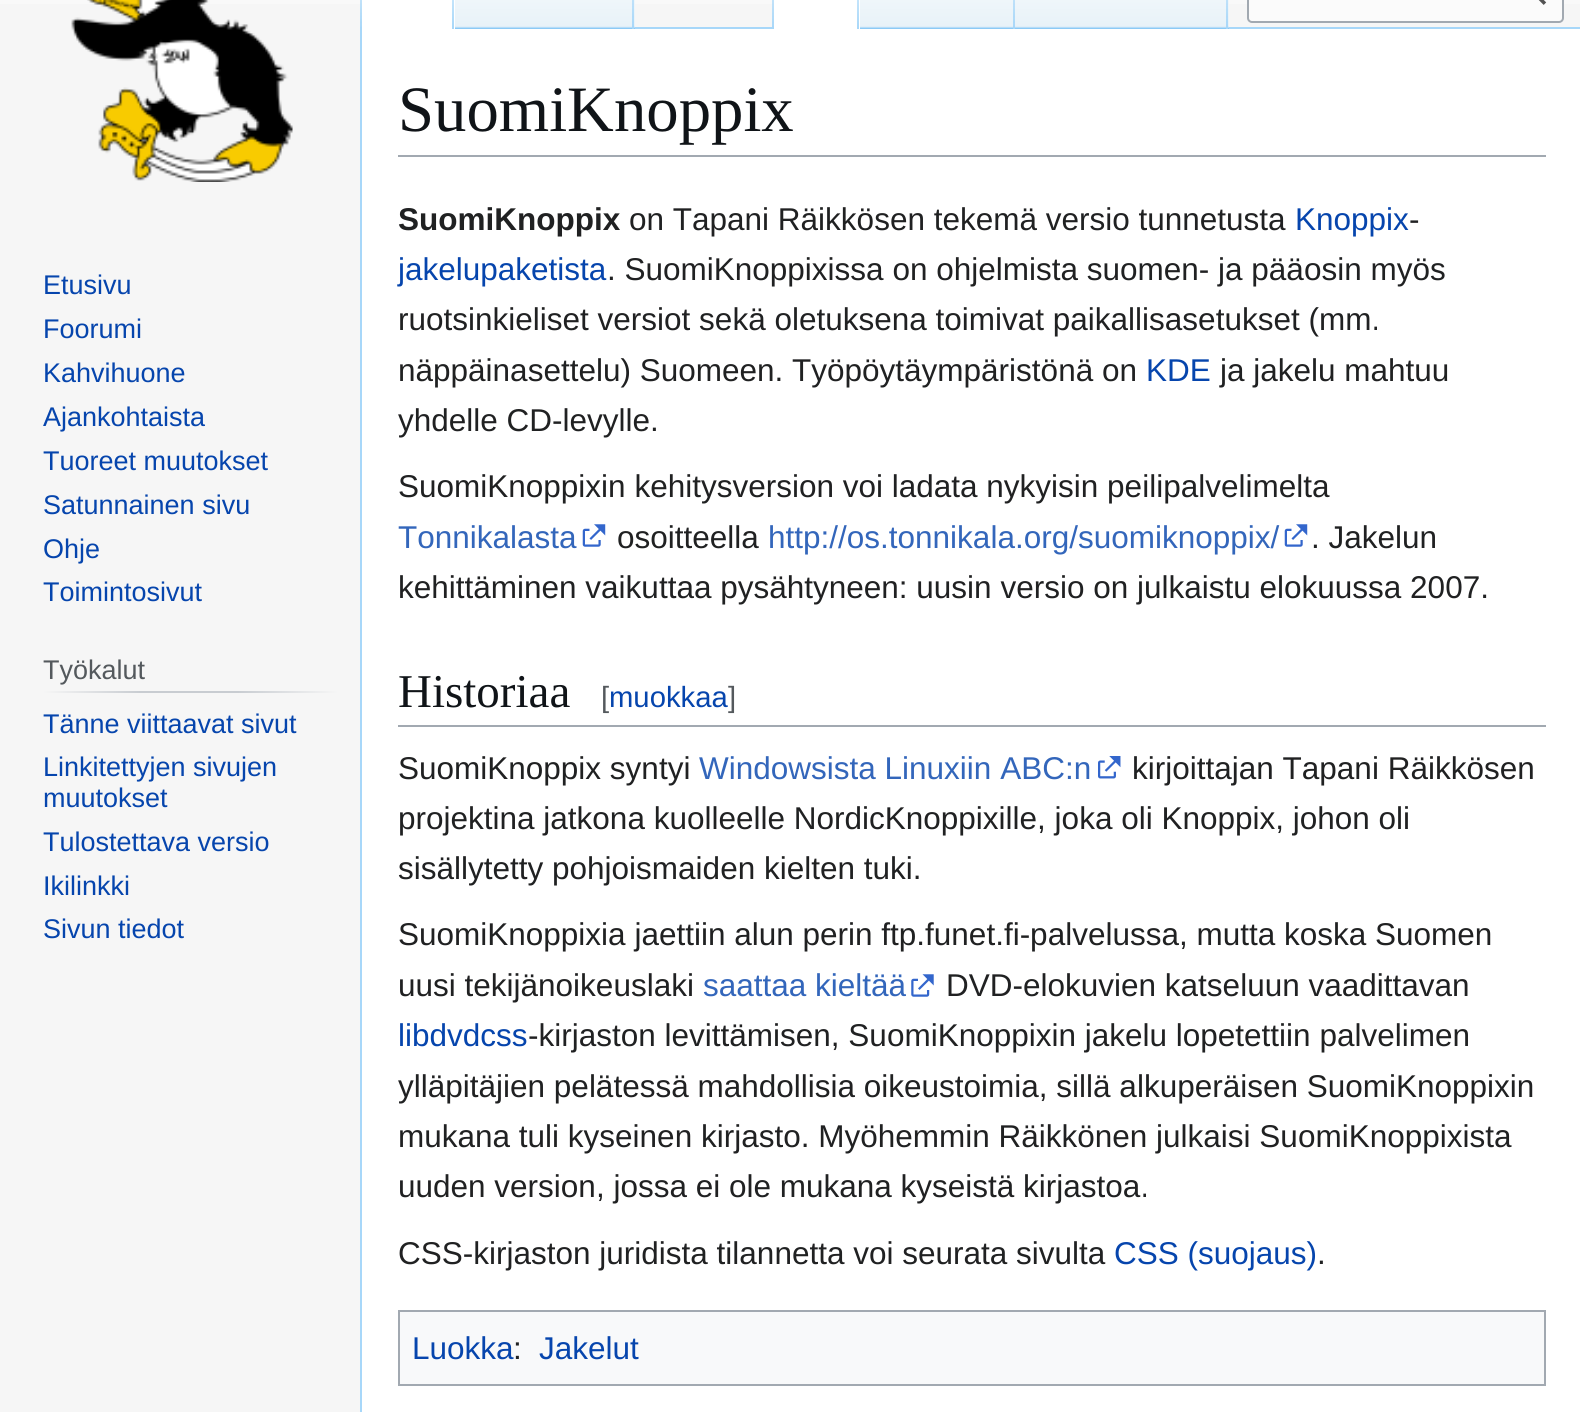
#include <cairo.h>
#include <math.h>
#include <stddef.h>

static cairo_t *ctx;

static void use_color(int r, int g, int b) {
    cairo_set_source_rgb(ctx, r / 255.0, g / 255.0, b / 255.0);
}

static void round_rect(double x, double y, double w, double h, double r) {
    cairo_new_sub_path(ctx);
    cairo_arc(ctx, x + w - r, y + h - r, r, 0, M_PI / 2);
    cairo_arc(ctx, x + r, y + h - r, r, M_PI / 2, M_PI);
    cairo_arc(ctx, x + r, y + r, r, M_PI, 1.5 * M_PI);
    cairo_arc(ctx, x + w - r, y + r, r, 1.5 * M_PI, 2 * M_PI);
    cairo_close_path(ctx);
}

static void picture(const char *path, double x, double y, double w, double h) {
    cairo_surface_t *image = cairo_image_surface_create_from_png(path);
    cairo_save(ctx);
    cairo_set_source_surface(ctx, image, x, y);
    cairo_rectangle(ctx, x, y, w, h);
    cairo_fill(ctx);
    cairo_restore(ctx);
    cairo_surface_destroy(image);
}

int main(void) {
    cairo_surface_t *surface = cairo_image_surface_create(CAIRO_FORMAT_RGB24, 1580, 1412);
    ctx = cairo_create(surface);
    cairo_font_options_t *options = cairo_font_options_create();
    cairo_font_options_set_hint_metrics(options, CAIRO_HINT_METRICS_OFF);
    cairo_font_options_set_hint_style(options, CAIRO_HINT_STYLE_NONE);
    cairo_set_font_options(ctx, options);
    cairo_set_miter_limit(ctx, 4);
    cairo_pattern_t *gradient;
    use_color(246, 246, 246);
    cairo_paint(ctx);
    gradient = cairo_pattern_create_linear(791, -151, 791, 29);
    cairo_pattern_add_color_stop_rgba(gradient, 0.5, 1, 1, 1, 1);
    cairo_pattern_add_color_stop_rgba(gradient, 1, 0.965, 0.965, 0.965, 1);
    cairo_set_source(ctx, gradient);
    cairo_pattern_destroy(gradient);
    cairo_rectangle(ctx, 0, 0, 1580, 4);
    cairo_fill(ctx);
    use_color(167, 215, 249);
    cairo_rectangle(ctx, 360, 27, 2, 1385);
    cairo_fill(ctx);
    gradient = cairo_pattern_create_linear(361, -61, 361, 29);
    cairo_pattern_add_color_stop_rgba(gradient, 0, 0.655, 0.843, 0.976, 0);
    cairo_pattern_add_color_stop_rgba(gradient, 1, 0.655, 0.843, 0.976, 1);
    cairo_set_source(ctx, gradient);
    cairo_pattern_destroy(gradient);
    cairo_rectangle(ctx, 360, 0, 2, 29);
    cairo_fill(ctx);
    use_color(255, 255, 255);
    cairo_rectangle(ctx, 362, 0, 93, 29);
    cairo_fill(ctx);
    gradient = cairo_pattern_create_linear(453, -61, 453, 29);
    cairo_pattern_add_color_stop_rgba(gradient, 0, 1, 1, 1, 1);
    cairo_pattern_add_color_stop_rgba(gradient, 1, 0.655, 0.843, 0.976, 1);
    cairo_set_source(ctx, gradient);
    cairo_pattern_destroy(gradient);
    cairo_rectangle(ctx, 452, 0, 2, 29);
    cairo_fill(ctx);
    gradient = cairo_pattern_create_linear(545, 29, 545, -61);
    cairo_pattern_add_color_stop_rgba(gradient, 0, 0.467, 0.757, 0.965, 1);
    cairo_pattern_add_color_stop_rgba(gradient, 0.03, 0.91, 0.949, 0.973, 1);
    cairo_pattern_add_color_stop_rgba(gradient, 1, 1, 1, 1, 1);
    cairo_set_source(ctx, gradient);
    cairo_pattern_destroy(gradient);
    cairo_rectangle(ctx, 455, 0, 180, 29);
    cairo_fill(ctx);
    gradient = cairo_pattern_create_linear(633, -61, 633, 29);
    cairo_pattern_add_color_stop_rgba(gradient, 0, 0.655, 0.843, 0.976, 0);
    cairo_pattern_add_color_stop_rgba(gradient, 1, 0.655, 0.843, 0.976, 1);
    cairo_set_source(ctx, gradient);
    cairo_pattern_destroy(gradient);
    cairo_rectangle(ctx, 632, 0, 2, 29);
    cairo_fill(ctx);
    use_color(167, 215, 249);
    cairo_rectangle(ctx, 635, 27, 945, 2);
    cairo_fill(ctx);
    gradient = cairo_pattern_create_linear(773, -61, 773, 29);
    cairo_pattern_add_color_stop_rgba(gradient, 0, 0.655, 0.843, 0.976, 0);
    cairo_pattern_add_color_stop_rgba(gradient, 1, 0.655, 0.843, 0.976, 1);
    cairo_set_source(ctx, gradient);
    cairo_pattern_destroy(gradient);
    cairo_rectangle(ctx, 772, 0, 2, 29);
    cairo_fill(ctx);
    use_color(255, 255, 255);
    cairo_rectangle(ctx, 774, 0, 86, 29);
    cairo_fill(ctx);
    gradient = cairo_pattern_create_linear(858, -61, 858, 29);
    cairo_pattern_add_color_stop_rgba(gradient, 0, 1, 1, 1, 1);
    cairo_pattern_add_color_stop_rgba(gradient, 1, 0.655, 0.843, 0.976, 1);
    cairo_set_source(ctx, gradient);
    cairo_pattern_destroy(gradient);
    cairo_rectangle(ctx, 857, 0, 2, 29);
    cairo_fill(ctx);
    gradient = cairo_pattern_create_linear(937, 29, 937, -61);
    cairo_pattern_add_color_stop_rgba(gradient, 0, 0.467, 0.757, 0.965, 1);
    cairo_pattern_add_color_stop_rgba(gradient, 0.03, 0.91, 0.949, 0.973, 1);
    cairo_pattern_add_color_stop_rgba(gradient, 1, 1, 1, 1, 1);
    cairo_set_source(ctx, gradient);
    cairo_pattern_destroy(gradient);
    cairo_rectangle(ctx, 860, 0, 155, 29);
    cairo_fill(ctx);
    gradient = cairo_pattern_create_linear(1014, -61, 1014, 29);
    cairo_pattern_add_color_stop_rgba(gradient, 0, 0.655, 0.843, 0.976, 0);
    cairo_pattern_add_color_stop_rgba(gradient, 1, 0.655, 0.843, 0.976, 1);
    cairo_set_source(ctx, gradient);
    cairo_pattern_destroy(gradient);
    cairo_rectangle(ctx, 1013, 0, 2, 29);
    cairo_fill(ctx);
    gradient = cairo_pattern_create_linear(1122, 29, 1122, -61);
    cairo_pattern_add_color_stop_rgba(gradient, 0, 0.467, 0.757, 0.965, 1);
    cairo_pattern_add_color_stop_rgba(gradient, 0.03, 0.91, 0.949, 0.973, 1);
    cairo_pattern_add_color_stop_rgba(gradient, 1, 1, 1, 1, 1);
    cairo_set_source(ctx, gradient);
    cairo_pattern_destroy(gradient);
    cairo_rectangle(ctx, 1015, 0, 214, 29);
    cairo_fill(ctx);
    gradient = cairo_pattern_create_linear(1227, -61, 1227, 29);
    cairo_pattern_add_color_stop_rgba(gradient, 0, 0.655, 0.843, 0.976, 0);
    cairo_pattern_add_color_stop_rgba(gradient, 1, 0.655, 0.843, 0.976, 1);
    cairo_set_source(ctx, gradient);
    cairo_pattern_destroy(gradient);
    cairo_rectangle(ctx, 1226, 0, 2, 29);
    cairo_fill(ctx);
    use_color(251, 251, 251);
    round_rect(1248, -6, 315, 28, 4);
    cairo_fill_preserve(ctx);
    use_color(162, 169, 177);
    cairo_stroke(ctx);
    picture("img1.png", 1538, 0, 9, 5);
    picture("img2.png", 71, 0, 222, 182);
    cairo_select_font_face(ctx, "Liberation Sans", CAIRO_FONT_SLANT_NORMAL, CAIRO_FONT_WEIGHT_NORMAL);
    cairo_set_font_size(ctx, 27);
    use_color(6, 69, 173);
    cairo_move_to(ctx, 43, 294);
    cairo_show_text(ctx, "Etusivu");
    cairo_move_to(ctx, 43, 338);
    cairo_show_text(ctx, "Foorumi");
    cairo_move_to(ctx, 43, 382);
    cairo_show_text(ctx, "Kahvihuone");
    cairo_move_to(ctx, 43, 426);
    cairo_show_text(ctx, "Ajankohtaista");
    cairo_move_to(ctx, 43, 470);
    cairo_show_text(ctx, "Tuoreet muutokset");
    cairo_move_to(ctx, 43, 514);
    cairo_show_text(ctx, "Satunnainen sivu");
    cairo_move_to(ctx, 43, 558);
    cairo_show_text(ctx, "Ohje");
    cairo_move_to(ctx, 43, 601);
    cairo_show_text(ctx, "Toimintosivut");
    gradient = cairo_pattern_create_linear(43, 692, 338, 692);
    cairo_pattern_add_color_stop_rgba(gradient, 0, 0.965, 0.965, 0.965, 1);
    cairo_pattern_add_color_stop_rgba(gradient, 0.33, 0.784, 0.8, 0.82, 1);
    cairo_pattern_add_color_stop_rgba(gradient, 0.66, 0.784, 0.8, 0.82, 1);
    cairo_pattern_add_color_stop_rgba(gradient, 1, 0.965, 0.965, 0.965, 1);
    cairo_set_source(ctx, gradient);
    cairo_pattern_destroy(gradient);
    cairo_rectangle(ctx, 43, 691, 295, 2);
    cairo_fill(ctx);
    use_color(84, 89, 93);
    cairo_move_to(ctx, 43, 679);
    cairo_show_text(ctx, "Työkalut");
    use_color(6, 69, 173);
    cairo_move_to(ctx, 43, 733);
    cairo_show_text(ctx, "Tänne viittaavat sivut");
    cairo_move_to(ctx, 43, 776);
    cairo_show_text(ctx, "Linkitettyjen sivujen");
    cairo_move_to(ctx, 43, 807);
    cairo_show_text(ctx, "muutokset");
    cairo_move_to(ctx, 43, 851);
    cairo_show_text(ctx, "Tulostettava versio");
    cairo_move_to(ctx, 43, 895);
    cairo_show_text(ctx, "Ikilinkki");
    cairo_move_to(ctx, 43, 938);
    cairo_show_text(ctx, "Sivun tiedot");
    use_color(255, 255, 255);
    cairo_rectangle(ctx, 362, 29, 1218, 1383);
    cairo_fill(ctx);
    use_color(162, 169, 177);
    cairo_rectangle(ctx, 398, 155, 1148, 2);
    cairo_fill(ctx);
    cairo_select_font_face(ctx, "Liberation Serif", CAIRO_FONT_SLANT_NORMAL, CAIRO_FONT_WEIGHT_NORMAL);
    cairo_set_font_size(ctx, 64.75);
    use_color(16, 20, 24);
    cairo_move_to(ctx, 398, 131);
    cairo_show_text(ctx, "SuomiKnoppix");
    cairo_select_font_face(ctx, "Liberation Sans", CAIRO_FONT_SLANT_NORMAL, CAIRO_FONT_WEIGHT_BOLD);
    cairo_set_font_size(ctx, 31.5);
    use_color(32, 33, 34);
    cairo_move_to(ctx, 398, 230);
    cairo_show_text(ctx, "SuomiKnoppix");
    cairo_select_font_face(ctx, "Liberation Sans", CAIRO_FONT_SLANT_NORMAL, CAIRO_FONT_WEIGHT_NORMAL);
    cairo_move_to(ctx, 629, 230);
    cairo_show_text(ctx, "on Tapani Räikkösen tekemä versio tunnetusta");
    use_color(6, 69, 173);
    cairo_move_to(ctx, 1295, 230);
    cairo_show_text(ctx, "Knoppix");
    use_color(32, 33, 34);
    cairo_move_to(ctx, 1409, 230);
    cairo_show_text(ctx, "-");
    use_color(6, 69, 173);
    cairo_move_to(ctx, 398, 280);
    cairo_show_text(ctx, "jakelupaketista");
    use_color(32, 33, 34);
    cairo_move_to(ctx, 607, 280);
    cairo_show_text(ctx, ". SuomiKnoppixissa on ohjelmista suomen- ja pääosin myös");
    cairo_move_to(ctx, 398, 330);
    cairo_show_text(ctx, "ruotsinkieliset versiot sekä oletuksena toimivat paikallisasetukset (mm.");
    cairo_move_to(ctx, 398, 381);
    cairo_show_text(ctx, "näppäinasettelu) Suomeen. Työpöytäympäristönä on");
    use_color(6, 69, 173);
    cairo_move_to(ctx, 1146, 381);
    cairo_show_text(ctx, "KDE");
    use_color(32, 33, 34);
    cairo_move_to(ctx, 1220, 381);
    cairo_show_text(ctx, "ja jakelu mahtuu");
    cairo_move_to(ctx, 398, 431);
    cairo_show_text(ctx, "yhdelle CD-levylle.");
    cairo_move_to(ctx, 398, 497);
    cairo_show_text(ctx, "SuomiKnoppixin kehitysversion voi ladata nykyisin peilipalvelimelta");
    use_color(51, 102, 187);
    cairo_move_to(ctx, 398, 548);
    cairo_show_text(ctx, "Tonnikalasta");
    picture("img3.png", 582, 524, 24, 23);
    use_color(32, 33, 34);
    cairo_move_to(ctx, 617, 548);
    cairo_show_text(ctx, "osoitteella");
    use_color(51, 102, 187);
    cairo_move_to(ctx, 768, 548);
    cairo_show_text(ctx, "http://os.tonnikala.org/suomiknoppix/");
    picture("img3.png", 1284, 524, 24, 23);
    use_color(32, 33, 34);
    cairo_move_to(ctx, 1311, 548);
    cairo_show_text(ctx, ". Jakelun");
    cairo_move_to(ctx, 398, 598);
    cairo_show_text(ctx, "kehittäminen vaikuttaa pysähtyneen: uusin versio on julkaistu elokuussa 2007.");
    use_color(162, 169, 177);
    cairo_rectangle(ctx, 398, 725, 1148, 2);
    cairo_fill(ctx);
    cairo_select_font_face(ctx, "Liberation Serif", CAIRO_FONT_SLANT_NORMAL, CAIRO_FONT_WEIGHT_NORMAL);
    cairo_set_font_size(ctx, 47);
    use_color(16, 20, 24);
    cairo_move_to(ctx, 398, 707);
    cairo_show_text(ctx, "Historiaa");
    cairo_select_font_face(ctx, "Liberation Sans", CAIRO_FONT_SLANT_NORMAL, CAIRO_FONT_WEIGHT_NORMAL);
    cairo_set_font_size(ctx, 29.25);
    use_color(84, 89, 93);
    cairo_move_to(ctx, 601, 707);
    cairo_show_text(ctx, "[");
    use_color(6, 69, 173);
    cairo_move_to(ctx, 609, 707);
    cairo_show_text(ctx, "muokkaa");
    use_color(84, 89, 93);
    cairo_move_to(ctx, 728, 707);
    cairo_show_text(ctx, "]");
    cairo_set_font_size(ctx, 31.5);
    use_color(32, 33, 34);
    cairo_move_to(ctx, 398, 779);
    cairo_show_text(ctx, "SuomiKnoppix syntyi");
    use_color(51, 102, 187);
    cairo_move_to(ctx, 699, 779);
    cairo_show_text(ctx, "Windowsista Linuxiin ABC:n");
    picture("img4.png", 1098, 756, 23, 23);
    use_color(32, 33, 34);
    cairo_move_to(ctx, 1132, 779);
    cairo_show_text(ctx, "kirjoittajan Tapani Räikkösen");
    cairo_move_to(ctx, 398, 829);
    cairo_show_text(ctx, "projektina jatkona kuolleelle NordicKnoppixille, joka oli Knoppix, johon oli");
    cairo_move_to(ctx, 398, 879);
    cairo_show_text(ctx, "sisällytetty pohjoismaiden kielten tuki.");
    cairo_move_to(ctx, 398, 945);
    cairo_show_text(ctx, "SuomiKnoppixia jaettiin alun perin ftp.funet.fi-palvelussa, mutta koska Suomen");
    cairo_move_to(ctx, 398, 996);
    cairo_show_text(ctx, "uusi tekijänoikeuslaki");
    use_color(51, 102, 187);
    cairo_move_to(ctx, 703, 996);
    cairo_show_text(ctx, "saattaa kieltää");
    picture("img5.png", 911, 974, 23, 23);
    use_color(32, 33, 34);
    cairo_move_to(ctx, 946, 996);
    cairo_show_text(ctx, "DVD-elokuvien katseluun vaadittavan");
    use_color(6, 69, 173);
    cairo_move_to(ctx, 398, 1046);
    cairo_show_text(ctx, "libdvdcss");
    use_color(32, 33, 34);
    cairo_move_to(ctx, 528, 1046);
    cairo_show_text(ctx, "-kirjaston levittämisen, SuomiKnoppixin jakelu lopetettiin palvelimen");
    cairo_move_to(ctx, 398, 1097);
    cairo_show_text(ctx, "ylläpitäjien pelätessä mahdollisia oikeustoimia, sillä alkuperäisen SuomiKnoppixin");
    cairo_move_to(ctx, 398, 1147);
    cairo_show_text(ctx, "mukana tuli kyseinen kirjasto. Myöhemmin Räikkönen julkaisi SuomiKnoppixista");
    cairo_move_to(ctx, 398, 1197);
    cairo_show_text(ctx, "uuden version, jossa ei ole mukana kyseistä kirjastoa.");
    cairo_move_to(ctx, 398, 1264);
    cairo_show_text(ctx, "CSS-kirjaston juridista tilannetta voi seurata sivulta");
    use_color(6, 69, 173);
    cairo_move_to(ctx, 1114, 1264);
    cairo_show_text(ctx, "CSS (suojaus)");
    use_color(32, 33, 34);
    cairo_move_to(ctx, 1317, 1264);
    cairo_show_text(ctx, ".");
    use_color(248, 249, 250);
    cairo_rectangle(ctx, 399, 1311, 1146, 74);
    cairo_fill_preserve(ctx);
    use_color(162, 169, 177);
    cairo_stroke(ctx);
    use_color(6, 69, 173);
    cairo_move_to(ctx, 412, 1359);
    cairo_show_text(ctx, "Luokka");
    use_color(32, 33, 34);
    cairo_move_to(ctx, 513, 1359);
    cairo_show_text(ctx, ":");
    use_color(6, 69, 173);
    cairo_move_to(ctx, 539, 1359);
    cairo_show_text(ctx, "Jakelut");
    cairo_surface_write_to_png(surface, "result.png");
    cairo_font_options_destroy(options);
    cairo_destroy(ctx);
    cairo_surface_destroy(surface);
    return 0;
}
